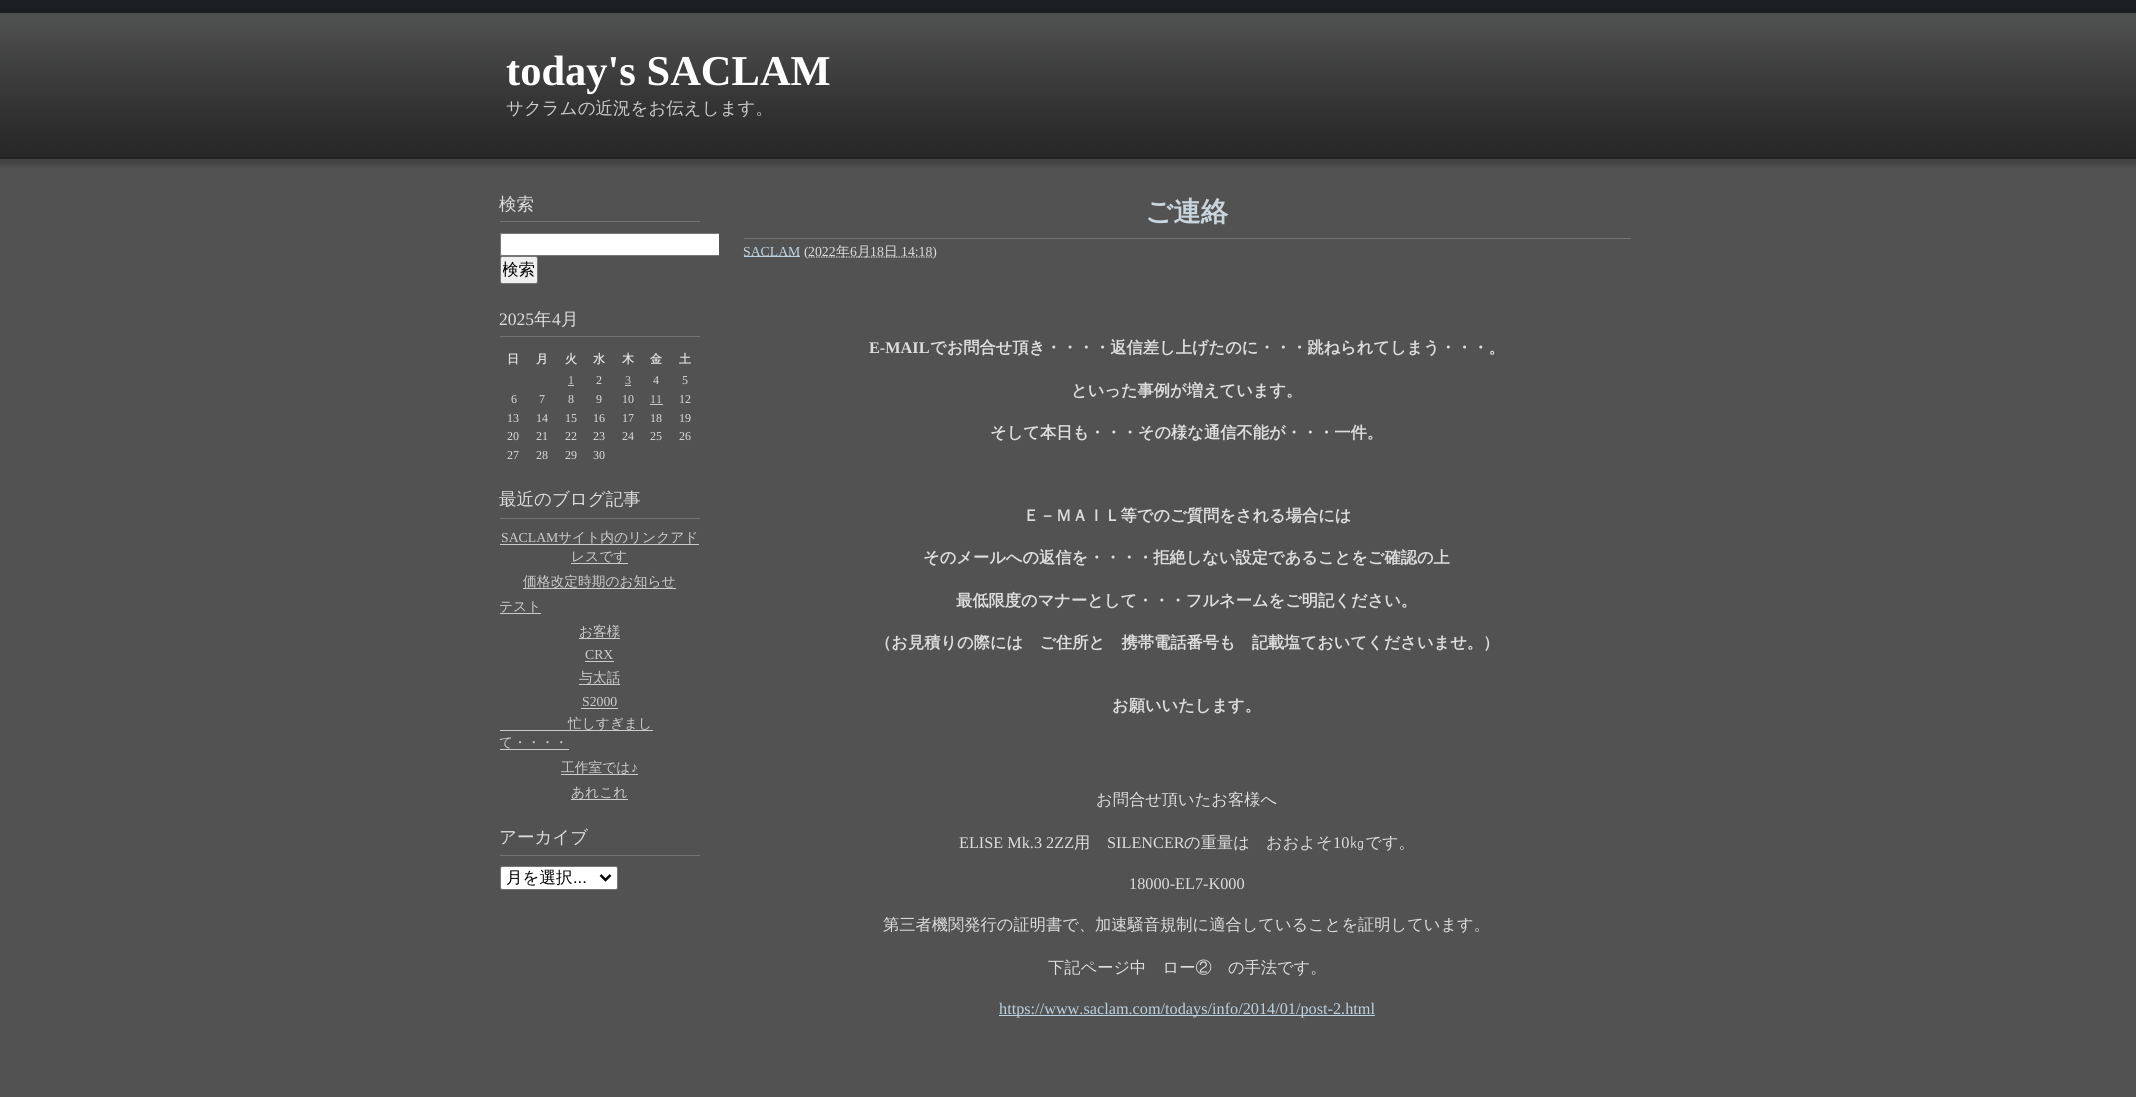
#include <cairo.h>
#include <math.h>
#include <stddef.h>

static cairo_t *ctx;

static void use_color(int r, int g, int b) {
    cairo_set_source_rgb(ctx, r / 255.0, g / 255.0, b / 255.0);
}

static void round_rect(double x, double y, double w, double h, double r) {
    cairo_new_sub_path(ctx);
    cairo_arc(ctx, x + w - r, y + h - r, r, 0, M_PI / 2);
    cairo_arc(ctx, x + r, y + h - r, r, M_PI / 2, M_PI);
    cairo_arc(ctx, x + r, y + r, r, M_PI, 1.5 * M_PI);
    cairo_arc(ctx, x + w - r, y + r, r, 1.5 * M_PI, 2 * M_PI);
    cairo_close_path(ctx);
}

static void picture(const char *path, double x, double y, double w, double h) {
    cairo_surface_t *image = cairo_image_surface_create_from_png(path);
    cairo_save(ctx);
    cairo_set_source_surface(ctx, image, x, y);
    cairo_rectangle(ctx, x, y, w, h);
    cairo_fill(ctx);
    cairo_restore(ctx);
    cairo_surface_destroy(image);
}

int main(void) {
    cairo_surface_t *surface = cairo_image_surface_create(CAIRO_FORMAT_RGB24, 2136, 1097);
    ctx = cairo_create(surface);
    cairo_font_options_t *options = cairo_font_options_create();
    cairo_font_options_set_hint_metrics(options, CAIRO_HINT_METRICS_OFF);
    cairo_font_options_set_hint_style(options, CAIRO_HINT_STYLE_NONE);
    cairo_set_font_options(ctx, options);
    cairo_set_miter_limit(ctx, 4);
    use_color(82, 82, 82);
    cairo_paint(ctx);
    picture("img1.png", 0, 13, 2136, 156);
    use_color(27, 31, 33);
    cairo_rectangle(ctx, 0, 0, 2136, 13);
    cairo_fill(ctx);
    cairo_select_font_face(ctx, "Liberation Serif", CAIRO_FONT_SLANT_NORMAL, CAIRO_FONT_WEIGHT_BOLD);
    cairo_set_font_size(ctx, 42.5);
    use_color(255, 255, 255);
    cairo_move_to(ctx, 506, 85);
    cairo_show_text(ctx, "today's SACLAM");
    cairo_select_font_face(ctx, "WenQuanYi Zen Hei Medium", CAIRO_FONT_SLANT_NORMAL, CAIRO_FONT_WEIGHT_NORMAL);
    cairo_set_font_size(ctx, 17.5);
    use_color(204, 204, 204);
    cairo_move_to(ctx, 506, 114);
    cairo_show_text(ctx, "サクラムの近況をお伝えします。");
    use_color(115, 115, 115);
    cairo_rectangle(ctx, 500, 221, 200, 1);
    cairo_fill(ctx);
    use_color(221, 221, 221);
    cairo_move_to(ctx, 499, 210);
    cairo_show_text(ctx, "検索");
    use_color(255, 255, 255);
    cairo_new_path(ctx);
    cairo_move_to(ctx, 502.5, 233);
    cairo_line_to(ctx, 719, 233);
    cairo_line_to(ctx, 719, 256);
    cairo_line_to(ctx, 502.5, 256);
    cairo_curve_to(ctx, 501, 256, 500, 255, 500, 253.5);
    cairo_line_to(ctx, 500, 235.5);
    cairo_curve_to(ctx, 500, 234, 501, 233, 502.5, 233);
    cairo_close_path(ctx);
    cairo_fill(ctx);
    cairo_save(ctx);
    cairo_rectangle(ctx, 481, 194, 238, 115);
    cairo_clip(ctx);
    round_rect(500.5, 233.5, 225, 22, 2);
    use_color(118, 118, 118);
    cairo_set_line_width(ctx, 1);
    cairo_stroke(ctx);
    cairo_restore(ctx);
    use_color(239, 239, 239);
    round_rect(500.5, 256.5, 37, 27, 2);
    cairo_fill_preserve(ctx);
    use_color(118, 118, 118);
    cairo_set_line_width(ctx, 1);
    cairo_stroke(ctx);
    cairo_save(ctx);
    cairo_rectangle(ctx, 503, 259, 32, 22);
    cairo_clip(ctx);
    cairo_set_font_size(ctx, 16.5);
    use_color(0, 0, 0);
    cairo_move_to(ctx, 502, 275);
    cairo_show_text(ctx, "検索");
    cairo_restore(ctx);
    use_color(115, 115, 115);
    cairo_rectangle(ctx, 500, 336, 200, 1);
    cairo_fill(ctx);
    cairo_select_font_face(ctx, "Liberation Serif", CAIRO_FONT_SLANT_NORMAL, CAIRO_FONT_WEIGHT_NORMAL);
    use_color(221, 221, 221);
    cairo_move_to(ctx, 499, 325);
    cairo_show_text(ctx, "2025");
    cairo_select_font_face(ctx, "WenQuanYi Zen Hei Medium", CAIRO_FONT_SLANT_NORMAL, CAIRO_FONT_WEIGHT_NORMAL);
    cairo_move_to(ctx, 534, 325);
    cairo_show_text(ctx, "年");
    cairo_select_font_face(ctx, "Liberation Serif", CAIRO_FONT_SLANT_NORMAL, CAIRO_FONT_WEIGHT_NORMAL);
    cairo_move_to(ctx, 552, 325);
    cairo_show_text(ctx, "4");
    cairo_select_font_face(ctx, "WenQuanYi Zen Hei Medium", CAIRO_FONT_SLANT_NORMAL, CAIRO_FONT_WEIGHT_NORMAL);
    cairo_move_to(ctx, 561, 325);
    cairo_show_text(ctx, "月");
    cairo_select_font_face(ctx, "WenQuanYi Zen Hei", CAIRO_FONT_SLANT_NORMAL, CAIRO_FONT_WEIGHT_BOLD);
    cairo_set_font_size(ctx, 12);
    cairo_move_to(ctx, 507, 363);
    cairo_show_text(ctx, "日");
    cairo_move_to(ctx, 536, 363);
    cairo_show_text(ctx, "月");
    cairo_move_to(ctx, 565, 363);
    cairo_show_text(ctx, "火");
    cairo_move_to(ctx, 593, 363);
    cairo_show_text(ctx, "水");
    cairo_move_to(ctx, 622, 363);
    cairo_show_text(ctx, "木");
    cairo_move_to(ctx, 650, 363);
    cairo_show_text(ctx, "金");
    cairo_move_to(ctx, 679, 363);
    cairo_show_text(ctx, "土");
    cairo_select_font_face(ctx, "Liberation Serif", CAIRO_FONT_SLANT_NORMAL, CAIRO_FONT_WEIGHT_NORMAL);
    use_color(204, 204, 204);
    cairo_move_to(ctx, 568, 384);
    cairo_show_text(ctx, "1");
    cairo_rectangle(ctx, 568, 385, 6, 1);
    cairo_fill(ctx);
    use_color(221, 221, 221);
    cairo_move_to(ctx, 596, 384);
    cairo_show_text(ctx, "2");
    use_color(204, 204, 204);
    cairo_move_to(ctx, 625, 384);
    cairo_show_text(ctx, "3");
    cairo_rectangle(ctx, 625, 385, 6, 1);
    cairo_fill(ctx);
    use_color(221, 221, 221);
    cairo_move_to(ctx, 653, 384);
    cairo_show_text(ctx, "4");
    cairo_move_to(ctx, 682, 384);
    cairo_show_text(ctx, "5");
    cairo_move_to(ctx, 511, 403);
    cairo_show_text(ctx, "6");
    cairo_move_to(ctx, 539, 403);
    cairo_show_text(ctx, "7");
    cairo_move_to(ctx, 568, 403);
    cairo_show_text(ctx, "8");
    cairo_move_to(ctx, 596, 403);
    cairo_show_text(ctx, "9");
    cairo_move_to(ctx, 622, 403);
    cairo_show_text(ctx, "10");
    use_color(204, 204, 204);
    cairo_move_to(ctx, 650, 403);
    cairo_show_text(ctx, "11");
    cairo_rectangle(ctx, 650, 404, 13, 1);
    cairo_fill(ctx);
    use_color(221, 221, 221);
    cairo_move_to(ctx, 679, 403);
    cairo_show_text(ctx, "12");
    cairo_move_to(ctx, 507, 422);
    cairo_show_text(ctx, "13");
    cairo_move_to(ctx, 536, 422);
    cairo_show_text(ctx, "14");
    cairo_move_to(ctx, 565, 422);
    cairo_show_text(ctx, "15");
    cairo_move_to(ctx, 593, 422);
    cairo_show_text(ctx, "16");
    cairo_move_to(ctx, 622, 422);
    cairo_show_text(ctx, "17");
    cairo_move_to(ctx, 650, 422);
    cairo_show_text(ctx, "18");
    cairo_move_to(ctx, 679, 422);
    cairo_show_text(ctx, "19");
    cairo_move_to(ctx, 507, 440);
    cairo_show_text(ctx, "20");
    cairo_move_to(ctx, 536, 440);
    cairo_show_text(ctx, "21");
    cairo_move_to(ctx, 565, 440);
    cairo_show_text(ctx, "22");
    cairo_move_to(ctx, 593, 440);
    cairo_show_text(ctx, "23");
    cairo_move_to(ctx, 622, 440);
    cairo_show_text(ctx, "24");
    cairo_move_to(ctx, 650, 440);
    cairo_show_text(ctx, "25");
    cairo_move_to(ctx, 679, 440);
    cairo_show_text(ctx, "26");
    cairo_move_to(ctx, 507, 459);
    cairo_show_text(ctx, "27");
    cairo_move_to(ctx, 536, 459);
    cairo_show_text(ctx, "28");
    cairo_move_to(ctx, 565, 459);
    cairo_show_text(ctx, "29");
    cairo_move_to(ctx, 593, 459);
    cairo_show_text(ctx, "30");
    use_color(115, 115, 115);
    cairo_rectangle(ctx, 500, 518, 200, 1);
    cairo_fill(ctx);
    cairo_select_font_face(ctx, "WenQuanYi Zen Hei Medium", CAIRO_FONT_SLANT_NORMAL, CAIRO_FONT_WEIGHT_NORMAL);
    cairo_set_font_size(ctx, 17.5);
    use_color(221, 221, 221);
    cairo_move_to(ctx, 499, 505);
    cairo_show_text(ctx, "最近のブログ記事");
    cairo_select_font_face(ctx, "Liberation Serif", CAIRO_FONT_SLANT_NORMAL, CAIRO_FONT_WEIGHT_NORMAL);
    cairo_set_font_size(ctx, 13.75);
    use_color(204, 204, 204);
    cairo_move_to(ctx, 501, 542);
    cairo_show_text(ctx, "SACLAM");
    cairo_rectangle(ctx, 500, 544, 199, 1);
    cairo_fill(ctx);
    cairo_select_font_face(ctx, "WenQuanYi Zen Hei Medium", CAIRO_FONT_SLANT_NORMAL, CAIRO_FONT_WEIGHT_NORMAL);
    cairo_move_to(ctx, 558, 542);
    cairo_show_text(ctx, "サイト内のリンクアド");
    cairo_rectangle(ctx, 571, 563, 57, 1);
    cairo_fill(ctx);
    cairo_move_to(ctx, 571, 561);
    cairo_show_text(ctx, "レスです");
    cairo_rectangle(ctx, 523, 588, 153, 1);
    cairo_fill(ctx);
    cairo_move_to(ctx, 523, 586);
    cairo_show_text(ctx, "価格改定時期のお知らせ");
    cairo_move_to(ctx, 499, 611);
    cairo_show_text(ctx, "テスト");
    cairo_rectangle(ctx, 500, 613, 41, 1);
    cairo_fill(ctx);
    cairo_rectangle(ctx, 579, 638, 41, 1);
    cairo_fill(ctx);
    cairo_move_to(ctx, 579, 636);
    cairo_show_text(ctx, "お客様");
    cairo_select_font_face(ctx, "Liberation Serif", CAIRO_FONT_SLANT_NORMAL, CAIRO_FONT_WEIGHT_NORMAL);
    cairo_move_to(ctx, 585, 659);
    cairo_show_text(ctx, "CRX");
    cairo_rectangle(ctx, 585, 661, 29, 1);
    cairo_fill(ctx);
    cairo_select_font_face(ctx, "WenQuanYi Zen Hei Medium", CAIRO_FONT_SLANT_NORMAL, CAIRO_FONT_WEIGHT_NORMAL);
    cairo_move_to(ctx, 579, 682);
    cairo_show_text(ctx, "与太話");
    cairo_rectangle(ctx, 579, 684, 41, 1);
    cairo_fill(ctx);
    cairo_select_font_face(ctx, "Liberation Serif", CAIRO_FONT_SLANT_NORMAL, CAIRO_FONT_WEIGHT_NORMAL);
    cairo_move_to(ctx, 582, 706);
    cairo_show_text(ctx, "S2000");
    cairo_rectangle(ctx, 581, 708, 37, 1);
    cairo_fill(ctx);
    cairo_rectangle(ctx, 500, 730, 153, 1);
    cairo_fill(ctx);
    cairo_select_font_face(ctx, "WenQuanYi Zen Hei Medium", CAIRO_FONT_SLANT_NORMAL, CAIRO_FONT_WEIGHT_NORMAL);
    cairo_move_to(ctx, 568, 728);
    cairo_show_text(ctx, "忙しすぎまし");
    cairo_move_to(ctx, 499, 747);
    cairo_show_text(ctx, "て・・・・");
    cairo_rectangle(ctx, 500, 749, 69, 1);
    cairo_fill(ctx);
    cairo_rectangle(ctx, 561, 774, 77, 1);
    cairo_fill(ctx);
    cairo_move_to(ctx, 561, 772);
    cairo_show_text(ctx, "工作室では");
    cairo_select_font_face(ctx, "Liberation Serif", CAIRO_FONT_SLANT_NORMAL, CAIRO_FONT_WEIGHT_NORMAL);
    cairo_move_to(ctx, 631, 772);
    cairo_show_text(ctx, "♪");
    cairo_rectangle(ctx, 571, 799, 57, 1);
    cairo_fill(ctx);
    cairo_select_font_face(ctx, "WenQuanYi Zen Hei Medium", CAIRO_FONT_SLANT_NORMAL, CAIRO_FONT_WEIGHT_NORMAL);
    cairo_move_to(ctx, 571, 797);
    cairo_show_text(ctx, "あれこれ");
    use_color(115, 115, 115);
    cairo_rectangle(ctx, 500, 855, 200, 1);
    cairo_fill(ctx);
    cairo_set_font_size(ctx, 17.5);
    use_color(221, 221, 221);
    cairo_move_to(ctx, 499, 843);
    cairo_show_text(ctx, "アーカイブ");
    use_color(255, 255, 255);
    round_rect(500.5, 866.5, 117, 23, 2);
    cairo_fill_preserve(ctx);
    use_color(118, 118, 118);
    cairo_stroke(ctx);
    cairo_new_path(ctx);
    cairo_move_to(ctx, 600.5, 875);
    cairo_line_to(ctx, 605.5, 880);
    cairo_line_to(ctx, 610.5, 875);
    use_color(0, 0, 0);
    cairo_set_line_width(ctx, 2.5);
    cairo_stroke(ctx);
    cairo_set_font_size(ctx, 16.5);
    cairo_move_to(ctx, 506, 883);
    cairo_show_text(ctx, "月を選択");
    cairo_select_font_face(ctx, "Liberation Sans", CAIRO_FONT_SLANT_NORMAL, CAIRO_FONT_WEIGHT_NORMAL);
    cairo_move_to(ctx, 573, 883);
    cairo_show_text(ctx, "...");
    cairo_select_font_face(ctx, "WenQuanYi Zen Hei", CAIRO_FONT_SLANT_NORMAL, CAIRO_FONT_WEIGHT_BOLD);
    cairo_set_font_size(ctx, 27.5);
    use_color(201, 213, 221);
    cairo_move_to(ctx, 1145, 221);
    cairo_show_text(ctx, "ご連絡");
    use_color(115, 115, 115);
    cairo_rectangle(ctx, 744, 238, 887, 1);
    cairo_fill(ctx);
    use_color(189, 210, 224);
    cairo_rectangle(ctx, 744, 256, 56, 1);
    cairo_fill(ctx);
    cairo_select_font_face(ctx, "Liberation Serif", CAIRO_FONT_SLANT_NORMAL, CAIRO_FONT_WEIGHT_NORMAL);
    cairo_set_font_size(ctx, 13.75);
    cairo_move_to(ctx, 743, 256);
    cairo_show_text(ctx, "SACLAM");
    use_color(221, 221, 221);
    cairo_move_to(ctx, 804, 256);
    cairo_show_text(ctx, "(");
    cairo_new_path(ctx);
    cairo_move_to(ctx, 808.5, 257);
    cairo_line_to(ctx, 932.5, 257);
    cairo_set_line_width(ctx, 1.2);
    cairo_set_dash(ctx, (double[]){1.25, 1.25}, 2, 0);
    cairo_stroke(ctx);
    cairo_move_to(ctx, 808, 256);
    cairo_show_text(ctx, "2022");
    cairo_select_font_face(ctx, "WenQuanYi Zen Hei Medium", CAIRO_FONT_SLANT_NORMAL, CAIRO_FONT_WEIGHT_NORMAL);
    cairo_move_to(ctx, 836, 256);
    cairo_show_text(ctx, "年");
    cairo_select_font_face(ctx, "Liberation Serif", CAIRO_FONT_SLANT_NORMAL, CAIRO_FONT_WEIGHT_NORMAL);
    cairo_move_to(ctx, 850, 256);
    cairo_show_text(ctx, "6");
    cairo_select_font_face(ctx, "WenQuanYi Zen Hei Medium", CAIRO_FONT_SLANT_NORMAL, CAIRO_FONT_WEIGHT_NORMAL);
    cairo_move_to(ctx, 857, 256);
    cairo_show_text(ctx, "月");
    cairo_select_font_face(ctx, "Liberation Serif", CAIRO_FONT_SLANT_NORMAL, CAIRO_FONT_WEIGHT_NORMAL);
    cairo_move_to(ctx, 870, 256);
    cairo_show_text(ctx, "18");
    cairo_select_font_face(ctx, "WenQuanYi Zen Hei Medium", CAIRO_FONT_SLANT_NORMAL, CAIRO_FONT_WEIGHT_NORMAL);
    cairo_move_to(ctx, 884, 256);
    cairo_show_text(ctx, "日");
    cairo_select_font_face(ctx, "Liberation Serif", CAIRO_FONT_SLANT_NORMAL, CAIRO_FONT_WEIGHT_NORMAL);
    cairo_move_to(ctx, 901, 256);
    cairo_show_text(ctx, "14:18)");
    cairo_select_font_face(ctx, "Liberation Serif", CAIRO_FONT_SLANT_NORMAL, CAIRO_FONT_WEIGHT_BOLD);
    cairo_set_font_size(ctx, 16.25);
    cairo_move_to(ctx, 869, 353);
    cairo_show_text(ctx, "E-MAIL");
    cairo_select_font_face(ctx, "WenQuanYi Zen Hei", CAIRO_FONT_SLANT_NORMAL, CAIRO_FONT_WEIGHT_BOLD);
    cairo_move_to(ctx, 930, 353);
    cairo_show_text(ctx, "でお問合せ頂き・・・・返信差し上げたのに・・・跳ねられてしまう・・・。");
    cairo_move_to(ctx, 1071, 396);
    cairo_show_text(ctx, "といった事例が増えています。");
    cairo_move_to(ctx, 990, 438);
    cairo_show_text(ctx, "そして本日も・・・その様な通信不能が・・・一件。");
    cairo_move_to(ctx, 1023, 521);
    cairo_show_text(ctx, "Ｅ－ＭＡＩＬ等でのご質問をされる場合には");
    cairo_move_to(ctx, 923, 563);
    cairo_show_text(ctx, "そのメールへの返信を・・・・拒絶しない設定であることをご確認の上");
    cairo_move_to(ctx, 956, 606);
    cairo_show_text(ctx, "最低限度のマナーとして・・・フルネームをご明記ください。");
    cairo_move_to(ctx, 875, 648);
    cairo_show_text(ctx, "（お見積りの際には　ご住所と　携帯電話番号も　記載塩ておいてくださいませ。）");
    cairo_move_to(ctx, 1112, 711);
    cairo_show_text(ctx, "お願いいたします。");
    cairo_select_font_face(ctx, "WenQuanYi Zen Hei Medium", CAIRO_FONT_SLANT_NORMAL, CAIRO_FONT_WEIGHT_NORMAL);
    cairo_move_to(ctx, 1096, 805);
    cairo_show_text(ctx, "お問合せ頂いたお客様へ");
    cairo_select_font_face(ctx, "Liberation Serif", CAIRO_FONT_SLANT_NORMAL, CAIRO_FONT_WEIGHT_NORMAL);
    cairo_move_to(ctx, 959, 848);
    cairo_show_text(ctx, "ELISE Mk.3 2ZZ");
    cairo_select_font_face(ctx, "WenQuanYi Zen Hei Medium", CAIRO_FONT_SLANT_NORMAL, CAIRO_FONT_WEIGHT_NORMAL);
    cairo_move_to(ctx, 1074, 848);
    cairo_show_text(ctx, "用");
    cairo_select_font_face(ctx, "Liberation Serif", CAIRO_FONT_SLANT_NORMAL, CAIRO_FONT_WEIGHT_NORMAL);
    cairo_move_to(ctx, 1107, 848);
    cairo_show_text(ctx, "SILENCER");
    cairo_select_font_face(ctx, "WenQuanYi Zen Hei Medium", CAIRO_FONT_SLANT_NORMAL, CAIRO_FONT_WEIGHT_NORMAL);
    cairo_move_to(ctx, 1184, 848);
    cairo_show_text(ctx, "の重量は　おおよそ");
    cairo_select_font_face(ctx, "Liberation Serif", CAIRO_FONT_SLANT_NORMAL, CAIRO_FONT_WEIGHT_NORMAL);
    cairo_move_to(ctx, 1333, 848);
    cairo_show_text(ctx, "10");
    cairo_select_font_face(ctx, "WenQuanYi Zen Hei Medium", CAIRO_FONT_SLANT_NORMAL, CAIRO_FONT_WEIGHT_NORMAL);
    cairo_move_to(ctx, 1349, 848);
    cairo_show_text(ctx, "㎏です。");
    cairo_select_font_face(ctx, "Liberation Serif", CAIRO_FONT_SLANT_NORMAL, CAIRO_FONT_WEIGHT_NORMAL);
    cairo_move_to(ctx, 1129, 889);
    cairo_show_text(ctx, "18000-EL7-K000");
    cairo_select_font_face(ctx, "WenQuanYi Zen Hei Medium", CAIRO_FONT_SLANT_NORMAL, CAIRO_FONT_WEIGHT_NORMAL);
    cairo_move_to(ctx, 883, 930);
    cairo_show_text(ctx, "第三者機関発行の証明書で、加速騒音規制に適合していることを証明しています。");
    cairo_move_to(ctx, 1048, 973);
    cairo_show_text(ctx, "下記ページ中　ロー②　の手法です。");
    use_color(189, 210, 224);
    cairo_rectangle(ctx, 999, 1015, 376, 1);
    cairo_fill(ctx);
    cairo_select_font_face(ctx, "Liberation Serif", CAIRO_FONT_SLANT_NORMAL, CAIRO_FONT_WEIGHT_NORMAL);
    cairo_move_to(ctx, 999, 1014);
    cairo_show_text(ctx, "https://www.saclam.com/todays/info/2014/01/post-2.html");
    cairo_surface_write_to_png(surface, "result.png");
    cairo_font_options_destroy(options);
    cairo_destroy(ctx);
    cairo_surface_destroy(surface);
    return 0;
}
